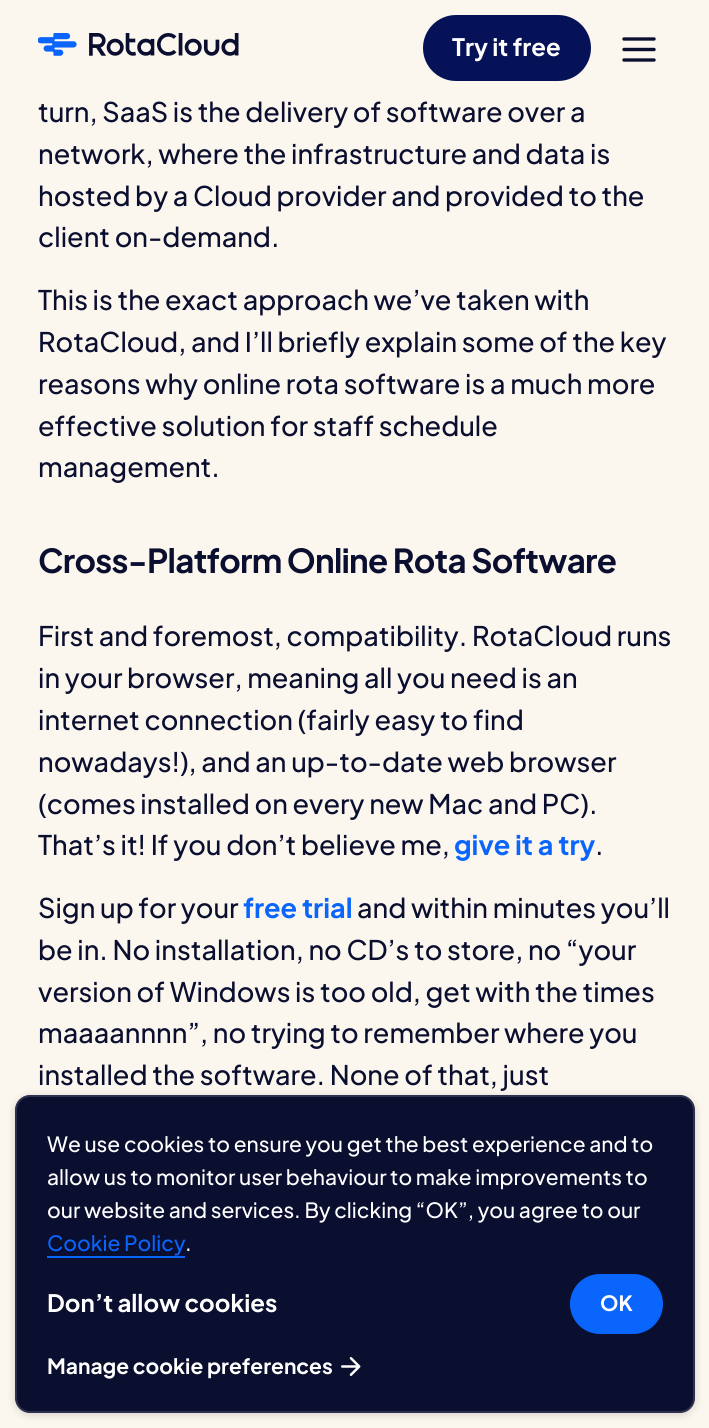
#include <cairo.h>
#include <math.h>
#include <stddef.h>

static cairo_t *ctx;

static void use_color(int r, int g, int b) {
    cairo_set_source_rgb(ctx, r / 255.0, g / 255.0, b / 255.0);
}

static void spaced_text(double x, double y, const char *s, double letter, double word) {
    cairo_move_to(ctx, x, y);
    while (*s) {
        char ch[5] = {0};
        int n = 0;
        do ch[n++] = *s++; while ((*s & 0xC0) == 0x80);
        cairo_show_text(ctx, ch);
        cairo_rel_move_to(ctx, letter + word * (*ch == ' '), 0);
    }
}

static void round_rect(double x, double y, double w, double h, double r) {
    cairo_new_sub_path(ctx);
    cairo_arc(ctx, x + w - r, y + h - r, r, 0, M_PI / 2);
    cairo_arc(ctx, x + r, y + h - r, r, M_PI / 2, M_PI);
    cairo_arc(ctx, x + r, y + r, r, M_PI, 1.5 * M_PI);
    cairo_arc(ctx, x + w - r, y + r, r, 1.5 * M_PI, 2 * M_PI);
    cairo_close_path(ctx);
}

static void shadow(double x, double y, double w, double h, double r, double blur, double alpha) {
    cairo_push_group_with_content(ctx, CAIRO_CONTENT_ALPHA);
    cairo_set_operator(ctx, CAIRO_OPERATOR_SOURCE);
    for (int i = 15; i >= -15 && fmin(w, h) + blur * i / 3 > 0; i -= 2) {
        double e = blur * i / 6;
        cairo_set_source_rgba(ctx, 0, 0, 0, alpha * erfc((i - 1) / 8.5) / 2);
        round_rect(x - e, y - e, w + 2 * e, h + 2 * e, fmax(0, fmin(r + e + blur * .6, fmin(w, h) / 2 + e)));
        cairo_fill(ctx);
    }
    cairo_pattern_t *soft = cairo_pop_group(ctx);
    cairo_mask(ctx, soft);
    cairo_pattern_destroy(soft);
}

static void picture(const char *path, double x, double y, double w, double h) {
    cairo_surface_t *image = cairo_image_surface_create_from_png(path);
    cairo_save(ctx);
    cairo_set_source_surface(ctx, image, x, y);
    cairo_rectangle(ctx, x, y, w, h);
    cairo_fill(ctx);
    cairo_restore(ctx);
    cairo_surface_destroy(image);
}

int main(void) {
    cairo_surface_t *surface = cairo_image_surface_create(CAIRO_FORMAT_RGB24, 709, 1428);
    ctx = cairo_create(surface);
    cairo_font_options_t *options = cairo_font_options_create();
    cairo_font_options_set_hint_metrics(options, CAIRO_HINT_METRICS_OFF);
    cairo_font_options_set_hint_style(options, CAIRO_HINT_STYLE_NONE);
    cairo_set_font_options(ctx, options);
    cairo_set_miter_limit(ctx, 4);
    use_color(251, 246, 238);
    cairo_paint(ctx);
    picture("img1.png", 38, 33, 201, 23);
    use_color(5, 18, 87);
    round_rect(423, 15, 168, 66, 33);
    cairo_fill(ctx);
    cairo_select_font_face(ctx, "Plus Jakarta Sans", CAIRO_FONT_SLANT_NORMAL, CAIRO_FONT_WEIGHT_BOLD);
    cairo_set_font_size(ctx, 24);
    use_color(255, 255, 255);
    cairo_move_to(ctx, 452, 56);
    cairo_show_text(ctx, "Try it free");
    cairo_new_path(ctx);
    cairo_move_to(ctx, 624, 39);
    cairo_line_to(ctx, 654, 39);
    cairo_move_to(ctx, 624, 49.5);
    cairo_line_to(ctx, 654, 49.5);
    cairo_move_to(ctx, 624, 60);
    cairo_line_to(ctx, 654, 60);
    use_color(10, 14, 47);
    cairo_set_line_width(ctx, 3.4);
    cairo_set_line_cap(ctx, CAIRO_LINE_CAP_ROUND);
    cairo_stroke(ctx);
    cairo_select_font_face(ctx, "Plus Jakarta Sans Medium", CAIRO_FONT_SLANT_NORMAL, CAIRO_FONT_WEIGHT_NORMAL);
    cairo_set_font_size(ctx, 27);
    cairo_move_to(ctx, 38, 122);
    cairo_show_text(ctx, "turn, SaaS is the delivery of software over a");
    cairo_move_to(ctx, 38, 164);
    cairo_show_text(ctx, "network, where the infrastructure and data is");
    cairo_move_to(ctx, 38, 206);
    cairo_show_text(ctx, "hosted by a Cloud provider and provided to the");
    cairo_move_to(ctx, 38, 247);
    cairo_show_text(ctx, "client on-demand.");
    cairo_move_to(ctx, 38, 310);
    cairo_show_text(ctx, "This is the exact approach we’ve taken with");
    cairo_move_to(ctx, 38, 352);
    cairo_show_text(ctx, "RotaCloud, and I’ll briefly explain some of the key");
    cairo_move_to(ctx, 38, 394);
    cairo_show_text(ctx, "reasons why online rota software is a much more");
    cairo_move_to(ctx, 38, 436);
    cairo_show_text(ctx, "effective solution for staff schedule");
    cairo_move_to(ctx, 38, 477);
    cairo_show_text(ctx, "management.");
    cairo_select_font_face(ctx, "Plus Jakarta Sans", CAIRO_FONT_SLANT_NORMAL, CAIRO_FONT_WEIGHT_BOLD);
    cairo_set_font_size(ctx, 33);
    spaced_text(38, 573, "Cross-Platform Online Rota Software", -0.7, 0);
    cairo_select_font_face(ctx, "Plus Jakarta Sans Medium", CAIRO_FONT_SLANT_NORMAL, CAIRO_FONT_WEIGHT_NORMAL);
    cairo_set_font_size(ctx, 27);
    cairo_move_to(ctx, 38, 646);
    cairo_show_text(ctx, "First and foremost, compatibility. RotaCloud runs");
    cairo_move_to(ctx, 38, 688);
    cairo_show_text(ctx, "in your browser, meaning all you need is an");
    cairo_move_to(ctx, 38, 730);
    cairo_show_text(ctx, "internet connection (fairly easy to find");
    cairo_move_to(ctx, 38, 772);
    cairo_show_text(ctx, "nowadays!), and an up-to-date web browser");
    cairo_move_to(ctx, 38, 814);
    cairo_show_text(ctx, "(comes installed on every new Mac and PC).");
    cairo_move_to(ctx, 38, 855);
    cairo_show_text(ctx, "That’s it! If you don’t believe me,");
    cairo_select_font_face(ctx, "Plus Jakarta Sans", CAIRO_FONT_SLANT_NORMAL, CAIRO_FONT_WEIGHT_BOLD);
    use_color(10, 101, 252);
    cairo_move_to(ctx, 454, 855);
    cairo_show_text(ctx, "give it a try");
    cairo_select_font_face(ctx, "Plus Jakarta Sans Medium", CAIRO_FONT_SLANT_NORMAL, CAIRO_FONT_WEIGHT_NORMAL);
    use_color(10, 14, 47);
    cairo_move_to(ctx, 595, 855);
    cairo_show_text(ctx, ".");
    cairo_move_to(ctx, 38, 918);
    cairo_show_text(ctx, "Sign up for your");
    cairo_select_font_face(ctx, "Plus Jakarta Sans", CAIRO_FONT_SLANT_NORMAL, CAIRO_FONT_WEIGHT_BOLD);
    use_color(10, 101, 252);
    cairo_move_to(ctx, 243, 918);
    cairo_show_text(ctx, "free trial");
    cairo_select_font_face(ctx, "Plus Jakarta Sans Medium", CAIRO_FONT_SLANT_NORMAL, CAIRO_FONT_WEIGHT_NORMAL);
    use_color(10, 14, 47);
    cairo_move_to(ctx, 357, 918);
    cairo_show_text(ctx, "and within minutes you’ll");
    cairo_move_to(ctx, 38, 960);
    cairo_show_text(ctx, "be in. No installation, no CD’s to store, no “your");
    cairo_move_to(ctx, 38, 1002);
    cairo_show_text(ctx, "version of Windows is too old, get with the times");
    cairo_move_to(ctx, 38, 1043);
    cairo_show_text(ctx, "maaaannnn”, no trying to remember where you");
    cairo_move_to(ctx, 38, 1085);
    cairo_show_text(ctx, "installed the software. None of that, just");
    use_color(0, 0, 0);
    shadow(15, 1097, 680, 318, 15, 4.5, 0.15);
    use_color(10, 14, 47);
    round_rect(15, 1095, 680, 318, 15);
    cairo_fill(ctx);
    round_rect(16, 1096, 678, 316, 14);
    cairo_set_source_rgba(ctx, 0.984, 0.965, 0.933, 0.15);
    cairo_set_line_width(ctx, 2);
    cairo_set_line_cap(ctx, CAIRO_LINE_CAP_BUTT);
    cairo_stroke(ctx);
    cairo_set_font_size(ctx, 21);
    use_color(255, 255, 255);
    cairo_move_to(ctx, 47, 1152);
    cairo_show_text(ctx, "We use cookies to ensure you get the best experience and to");
    cairo_move_to(ctx, 47, 1185);
    cairo_show_text(ctx, "allow us to monitor user behaviour to make improvements to");
    cairo_move_to(ctx, 47, 1218);
    cairo_show_text(ctx, "our website and services. By clicking “OK”, you agree to our");
    use_color(10, 101, 252);
    cairo_move_to(ctx, 47, 1251);
    cairo_show_text(ctx, "Cookie Policy");
    cairo_rectangle(ctx, 47, 1256, 138, 2);
    cairo_fill(ctx);
    use_color(255, 255, 255);
    cairo_move_to(ctx, 185, 1251);
    cairo_show_text(ctx, ".");
    cairo_select_font_face(ctx, "Plus Jakarta Sans", CAIRO_FONT_SLANT_NORMAL, CAIRO_FONT_WEIGHT_BOLD);
    cairo_set_font_size(ctx, 24);
    cairo_move_to(ctx, 47, 1312);
    cairo_show_text(ctx, "Don’t allow cookies");
    use_color(10, 101, 252);
    round_rect(570, 1274, 93, 60, 30);
    cairo_fill(ctx);
    cairo_set_font_size(ctx, 21);
    use_color(255, 255, 255);
    cairo_move_to(ctx, 600, 1311);
    cairo_show_text(ctx, "OK");
    cairo_move_to(ctx, 47, 1374);
    cairo_show_text(ctx, "Manage cookie preferences");
    picture("img2.png", 341, 1357, 20, 19);
    cairo_surface_write_to_png(surface, "result.png");
    cairo_font_options_destroy(options);
    cairo_destroy(ctx);
    cairo_surface_destroy(surface);
    return 0;
}
